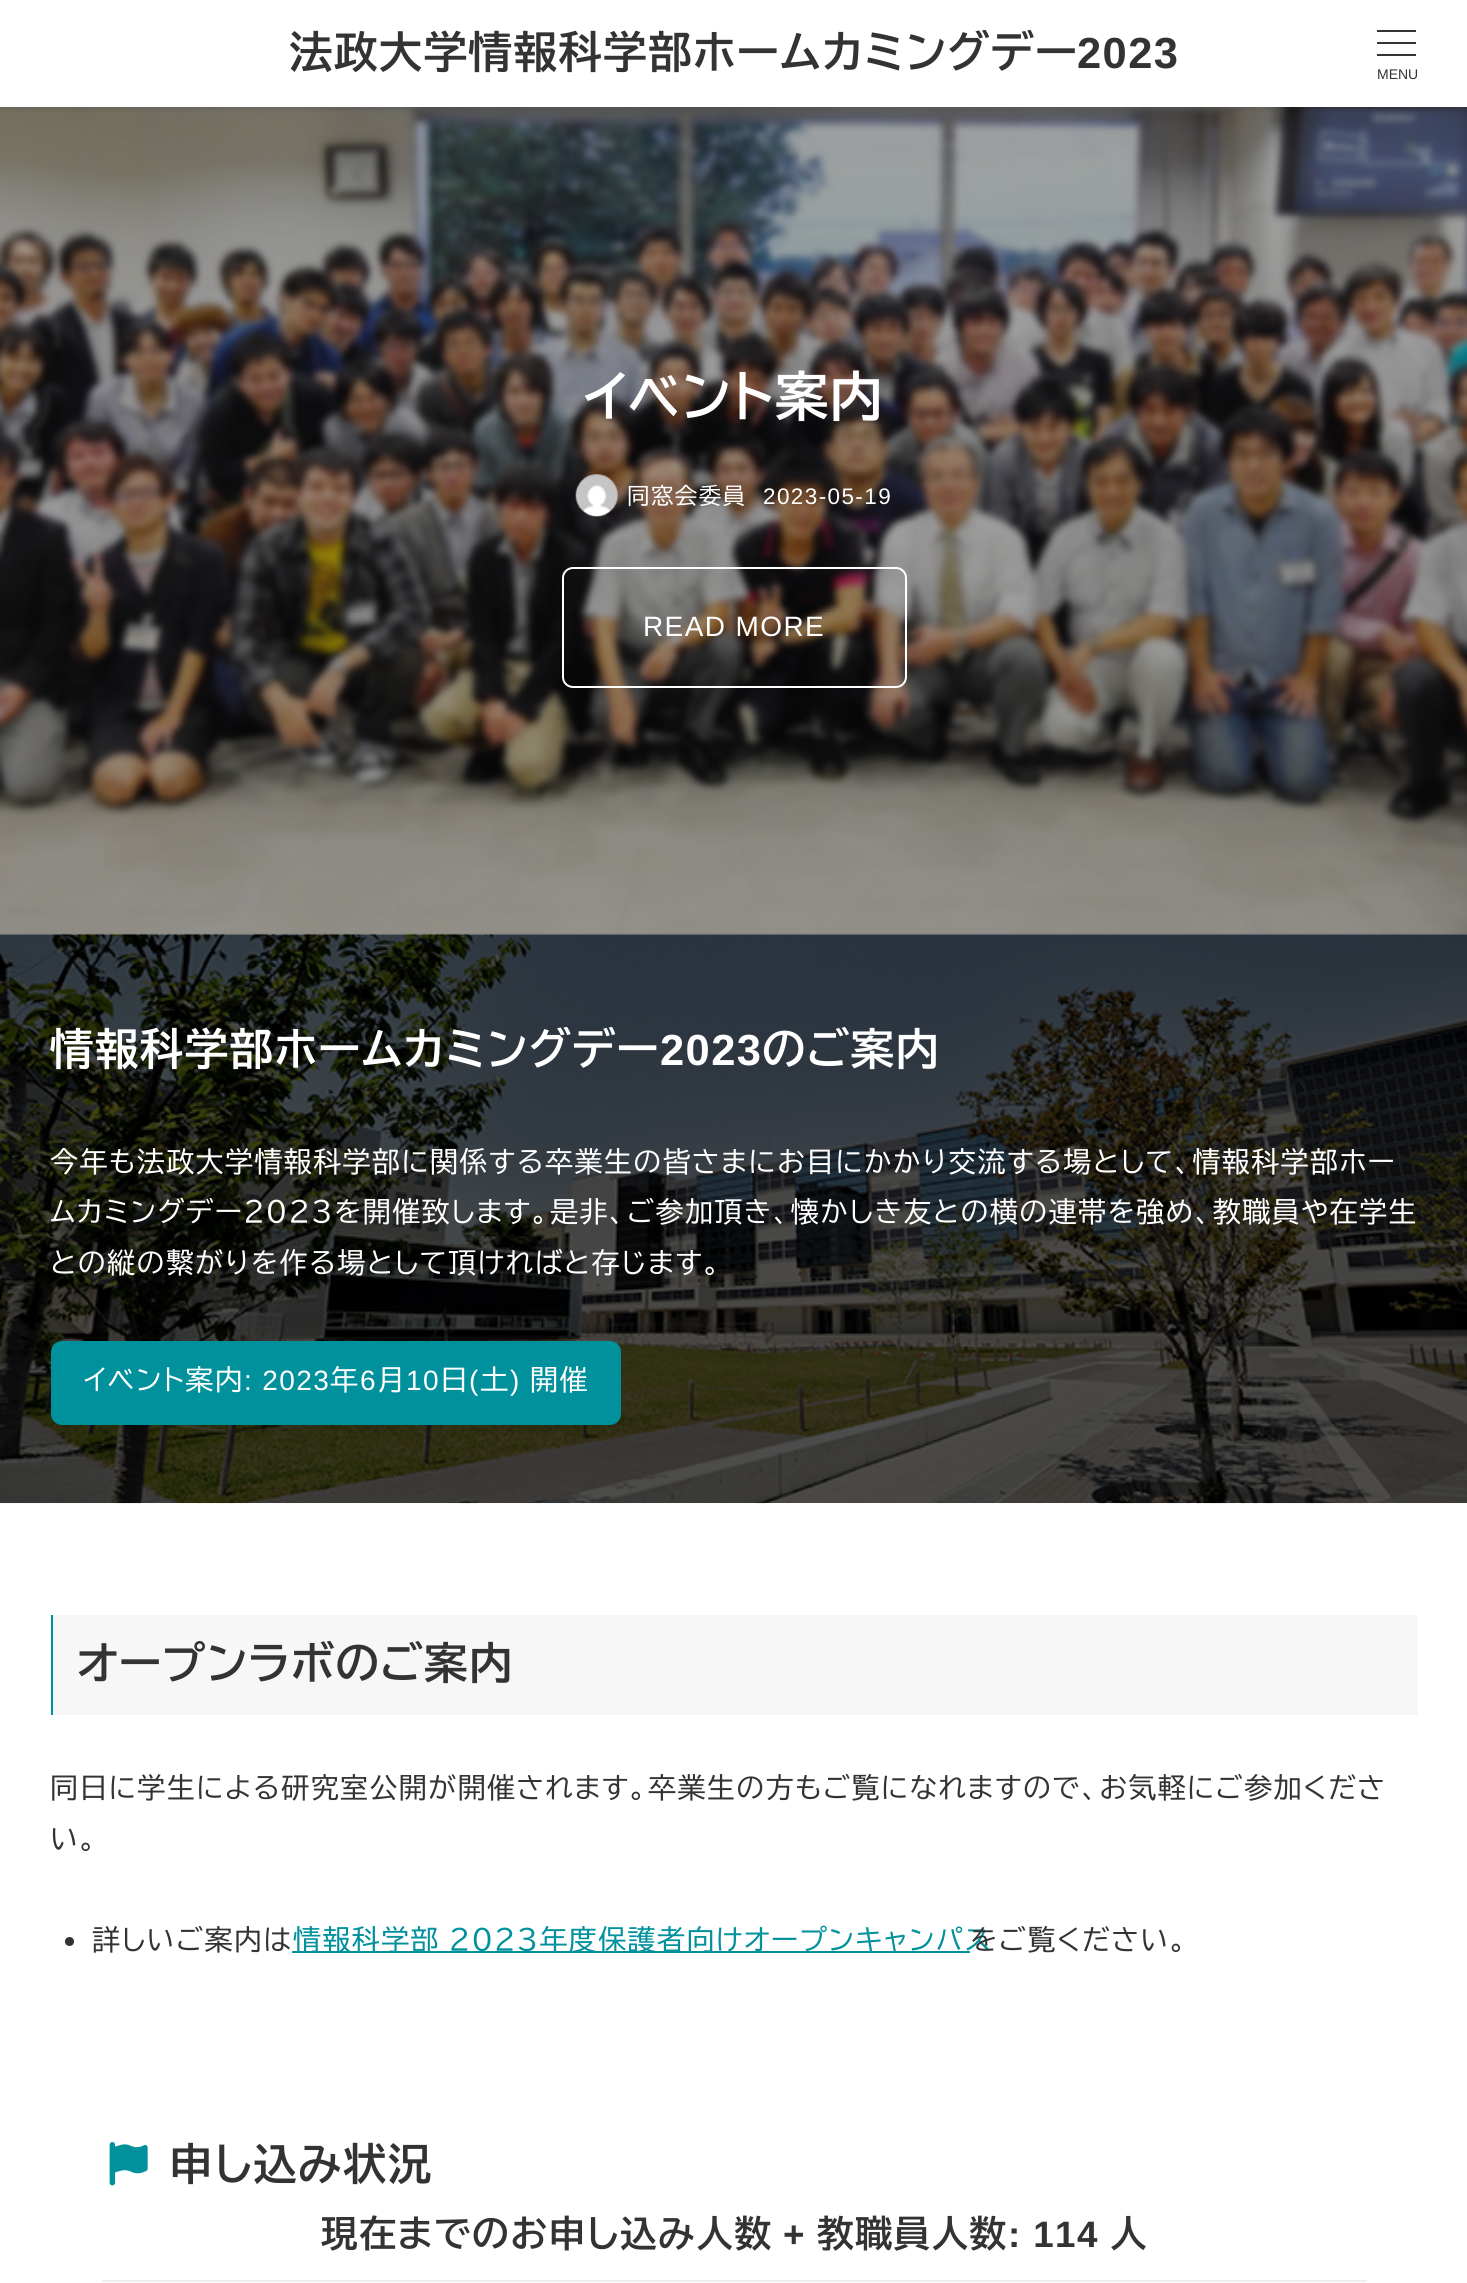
#include <cairo.h>
#include <math.h>
#include <stddef.h>

static cairo_t *ctx;

static void use_color(int r, int g, int b) {
    cairo_set_source_rgb(ctx, r / 255.0, g / 255.0, b / 255.0);
}

static void spaced_text(double x, double y, const char *s, double letter, double word) {
    cairo_move_to(ctx, x, y);
    while (*s) {
        char ch[5] = {0};
        int n = 0;
        do ch[n++] = *s++; while ((*s & 0xC0) == 0x80);
        cairo_show_text(ctx, ch);
        cairo_rel_move_to(ctx, letter + word * (*ch == ' '), 0);
    }
}

static void round_rect(double x, double y, double w, double h, double r) {
    cairo_new_sub_path(ctx);
    cairo_arc(ctx, x + w - r, y + h - r, r, 0, M_PI / 2);
    cairo_arc(ctx, x + r, y + h - r, r, M_PI / 2, M_PI);
    cairo_arc(ctx, x + r, y + r, r, M_PI, 1.5 * M_PI);
    cairo_arc(ctx, x + w - r, y + r, r, 1.5 * M_PI, 2 * M_PI);
    cairo_close_path(ctx);
}

static void shadow(double x, double y, double w, double h, double r, double blur, double alpha) {
    cairo_push_group_with_content(ctx, CAIRO_CONTENT_ALPHA);
    cairo_set_operator(ctx, CAIRO_OPERATOR_SOURCE);
    for (int i = 15; i >= -15 && fmin(w, h) + blur * i / 3 > 0; i -= 2) {
        double e = blur * i / 6;
        cairo_set_source_rgba(ctx, 0, 0, 0, alpha * erfc((i - 1) / 8.5) / 2);
        round_rect(x - e, y - e, w + 2 * e, h + 2 * e, fmax(0, fmin(r + e + blur * .6, fmin(w, h) / 2 + e)));
        cairo_fill(ctx);
    }
    cairo_pattern_t *soft = cairo_pop_group(ctx);
    cairo_mask(ctx, soft);
    cairo_pattern_destroy(soft);
}

static void picture(const char *path, double x, double y, double w, double h) {
    cairo_surface_t *image = cairo_image_surface_create_from_png(path);
    cairo_save(ctx);
    cairo_set_source_surface(ctx, image, x, y);
    cairo_rectangle(ctx, x, y, w, h);
    cairo_fill(ctx);
    cairo_restore(ctx);
    cairo_surface_destroy(image);
}

int main(void) {
    cairo_surface_t *surface = cairo_image_surface_create(CAIRO_FORMAT_RGB24, 1467, 2283);
    ctx = cairo_create(surface);
    cairo_font_options_t *options = cairo_font_options_create();
    cairo_font_options_set_hint_metrics(options, CAIRO_HINT_METRICS_OFF);
    cairo_font_options_set_hint_style(options, CAIRO_HINT_STYLE_NONE);
    cairo_set_font_options(ctx, options);
    cairo_set_miter_limit(ctx, 4);
    use_color(255, 255, 255);
    cairo_paint(ctx);
    use_color(17, 17, 17);
    cairo_rectangle(ctx, 0, 933, 1467, 2);
    cairo_fill(ctx);
    picture("img1.png", 0, 107, 1467, 828);
    use_color(0, 0, 0);
    shadow(-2, 0, 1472, 110, 0, 2, 0.05);
    use_color(255, 255, 255);
    cairo_rectangle(ctx, 0, 0, 1467, 107);
    cairo_fill(ctx);
    cairo_select_font_face(ctx, "BIZ UDPGothic", CAIRO_FONT_SLANT_NORMAL, CAIRO_FONT_WEIGHT_BOLD);
    cairo_set_font_size(ctx, 43.5);
    use_color(51, 51, 51);
    spaced_text(289, 68, "法政大学情報科学部ホームカミングデー", 1.4, 0);
    cairo_select_font_face(ctx, "Liberation Sans", CAIRO_FONT_SLANT_NORMAL, CAIRO_FONT_WEIGHT_BOLD);
    spaced_text(1077, 68, "2023", 1.4, 0);
    cairo_rectangle(ctx, 1377, 30, 39, 2);
    cairo_fill(ctx);
    cairo_rectangle(ctx, 1377, 42, 39, 2);
    cairo_fill(ctx);
    cairo_rectangle(ctx, 1377, 54, 39, 2);
    cairo_fill(ctx);
    cairo_select_font_face(ctx, "Liberation Sans", CAIRO_FONT_SLANT_NORMAL, CAIRO_FONT_WEIGHT_NORMAL);
    cairo_set_font_size(ctx, 14);
    cairo_move_to(ctx, 1377, 79);
    cairo_show_text(ctx, "MENU");
    cairo_select_font_face(ctx, "BIZ UDPGothic", CAIRO_FONT_SLANT_NORMAL, CAIRO_FONT_WEIGHT_BOLD);
    cairo_set_font_size(ctx, 53.25);
    use_color(255, 255, 255);
    spaced_text(584, 416, "イベント案内", 1.4, 0);
    picture("img2.png", 575, 474, 43, 43);
    cairo_select_font_face(ctx, "BIZ UDPGothic", CAIRO_FONT_SLANT_NORMAL, CAIRO_FONT_WEIGHT_NORMAL);
    cairo_set_font_size(ctx, 22.5);
    spaced_text(627, 504, "同窓会委員", 1.4, 0);
    cairo_select_font_face(ctx, "Liberation Sans", CAIRO_FONT_SLANT_NORMAL, CAIRO_FONT_WEIGHT_NORMAL);
    spaced_text(763, 504, "2023-05-19", 1.4, 0);
    round_rect(563, 568, 343, 119, 10);
    cairo_stroke(ctx);
    cairo_set_font_size(ctx, 28);
    spaced_text(643, 636, "READ MORE", 1.4, 0);
    picture("img3.png", 0, 934, 1467, 570);
    cairo_select_font_face(ctx, "BIZ UDPGothic", CAIRO_FONT_SLANT_NORMAL, CAIRO_FONT_WEIGHT_BOLD);
    cairo_set_font_size(ctx, 43.5);
    spaced_text(50, 1065, "情報科学部ホームカミングデー", 1.4, 0);
    cairo_select_font_face(ctx, "Liberation Sans", CAIRO_FONT_SLANT_NORMAL, CAIRO_FONT_WEIGHT_BOLD);
    spaced_text(660, 1065, "2023", 1.4, 0);
    cairo_select_font_face(ctx, "BIZ UDPGothic", CAIRO_FONT_SLANT_NORMAL, CAIRO_FONT_WEIGHT_BOLD);
    spaced_text(762, 1065, "のご案内", 1.4, 0);
    cairo_select_font_face(ctx, "BIZ UDPGothic", CAIRO_FONT_SLANT_NORMAL, CAIRO_FONT_WEIGHT_NORMAL);
    cairo_set_font_size(ctx, 28);
    spaced_text(50, 1172, "今年も法政大学情報科学部に関係する卒業生の皆さまにお目にかかり交流する場として、情報科学部ホー", 1.4, 0);
    spaced_text(50, 1222, "ムカミングデー2023を開催致します。是非、ご参加頂き、懐かしき友との横の連帯を強め、教職員や在学生", 1.4, 0);
    spaced_text(50, 1273, "との縦の繋がりを作る場として頂ければと存じます。", 1.4, 0);
    use_color(0, 145, 156);
    round_rect(51, 1341, 570, 84, 11);
    cairo_fill(ctx);
    use_color(255, 255, 255);
    spaced_text(84, 1390, "イベント案内", 1.4, 0);
    spaced_text(330, 1390, "年", 1.4, 0);
    spaced_text(377, 1390, "月", 1.4, 0);
    spaced_text(440, 1390, "日 土", 1.4, 0);
    spaced_text(530, 1390, "開催", 1.4, 0);
    cairo_select_font_face(ctx, "Liberation Sans", CAIRO_FONT_SLANT_NORMAL, CAIRO_FONT_WEIGHT_NORMAL);
    spaced_text(244, 1390, ": 2023", 1.4, 0);
    spaced_text(360, 1390, "6", 1.4, 0);
    spaced_text(406, 1390, "10", 1.4, 0);
    spaced_text(469, 1390, "(", 1.4, 0);
    spaced_text(510, 1390, ")", 1.4, 0);
    use_color(247, 247, 247);
    cairo_rectangle(ctx, 53, 1615, 1365, 100);
    cairo_fill(ctx);
    use_color(0, 145, 156);
    cairo_rectangle(ctx, 51, 1615, 2, 100);
    cairo_fill(ctx);
    cairo_select_font_face(ctx, "BIZ UDPGothic", CAIRO_FONT_SLANT_NORMAL, CAIRO_FONT_WEIGHT_BOLD);
    cairo_set_font_size(ctx, 43.5);
    use_color(51, 51, 51);
    spaced_text(77, 1679, "オープンラボのご案内", 1.4, 0);
    cairo_select_font_face(ctx, "BIZ UDPGothic", CAIRO_FONT_SLANT_NORMAL, CAIRO_FONT_WEIGHT_NORMAL);
    cairo_set_font_size(ctx, 28);
    spaced_text(50, 1798, "同日に学生による研究室公開が開催されます。卒業生の方もご覧になれますので、お気軽にご参加くださ", 1.4, 0);
    spaced_text(50, 1849, "い。", 1.4, 0);
    cairo_new_path(ctx);
    cairo_arc(ctx, 69.5, 1941.5, 4.5, 0, 2 * M_PI);
    cairo_fill(ctx);
    spaced_text(92, 1950, "詳しいご案内は", 1.4, 0);
    use_color(0, 145, 156);
    cairo_rectangle(ctx, 292, 1951, 678, 2);
    cairo_fill(ctx);
    spaced_text(293, 1950, "情報科学部 2023年度保護者向けオープンキャンパス", 1.4, -2);
    use_color(51, 51, 51);
    spaced_text(970, 1950, "をご覧ください。", 1.4, 0);
    picture("img4.png", 109, 2142, 39, 44);
    cairo_select_font_face(ctx, "BIZ UDPGothic", CAIRO_FONT_SLANT_NORMAL, CAIRO_FONT_WEIGHT_BOLD);
    cairo_set_font_size(ctx, 43.5);
    spaced_text(169, 2180, "申し込み状況", 1.4, 0);
    use_color(238, 238, 238);
    cairo_rectangle(ctx, 102, 2280, 1265, 2);
    cairo_fill(ctx);
    cairo_set_font_size(ctx, 36.75);
    use_color(51, 51, 51);
    spaced_text(321, 2247, "現在までのお申し込み人数", 1.4, 0);
    cairo_select_font_face(ctx, "Liberation Sans", CAIRO_FONT_SLANT_NORMAL, CAIRO_FONT_WEIGHT_BOLD);
    spaced_text(783, 2247, "+", 1.4, 0);
    cairo_select_font_face(ctx, "BIZ UDPGothic", CAIRO_FONT_SLANT_NORMAL, CAIRO_FONT_WEIGHT_BOLD);
    spaced_text(817, 2247, "教職員人数", 1.4, 0);
    cairo_select_font_face(ctx, "Liberation Sans", CAIRO_FONT_SLANT_NORMAL, CAIRO_FONT_WEIGHT_BOLD);
    spaced_text(1008, 2247, ": 114", 1.4, 0);
    cairo_select_font_face(ctx, "BIZ UDPGothic", CAIRO_FONT_SLANT_NORMAL, CAIRO_FONT_WEIGHT_BOLD);
    spaced_text(1110, 2247, "人", 1.4, 0);
    cairo_surface_write_to_png(surface, "result.png");
    cairo_font_options_destroy(options);
    cairo_destroy(ctx);
    cairo_surface_destroy(surface);
    return 0;
}
